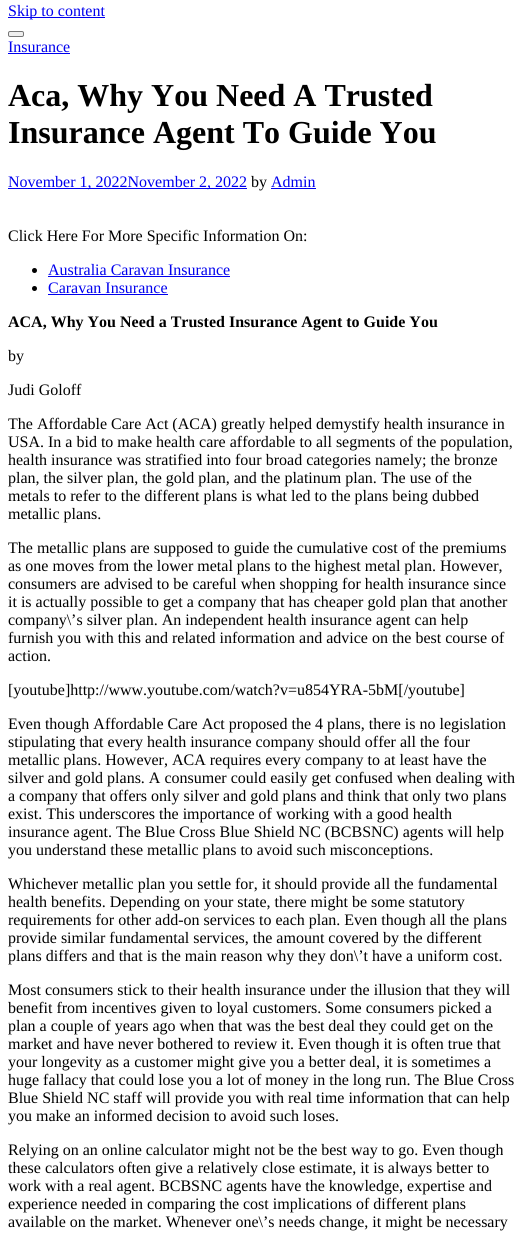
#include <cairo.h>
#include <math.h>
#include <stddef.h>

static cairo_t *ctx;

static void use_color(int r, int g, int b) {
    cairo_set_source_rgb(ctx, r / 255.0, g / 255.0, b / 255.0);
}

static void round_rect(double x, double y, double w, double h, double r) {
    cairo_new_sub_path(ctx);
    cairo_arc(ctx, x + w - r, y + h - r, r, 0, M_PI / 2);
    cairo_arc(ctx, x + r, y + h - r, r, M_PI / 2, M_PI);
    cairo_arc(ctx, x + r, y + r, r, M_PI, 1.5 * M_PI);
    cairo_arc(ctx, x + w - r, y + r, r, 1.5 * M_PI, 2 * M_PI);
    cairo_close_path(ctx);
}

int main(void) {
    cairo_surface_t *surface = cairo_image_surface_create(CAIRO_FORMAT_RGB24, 525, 1242);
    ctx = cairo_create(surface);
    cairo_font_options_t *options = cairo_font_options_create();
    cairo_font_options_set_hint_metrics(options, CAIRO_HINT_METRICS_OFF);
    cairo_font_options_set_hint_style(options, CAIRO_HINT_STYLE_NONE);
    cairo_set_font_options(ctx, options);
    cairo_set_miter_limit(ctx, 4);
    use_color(255, 255, 255);
    cairo_paint(ctx);
    use_color(0, 0, 238);
    cairo_rectangle(ctx, 8, 17, 97, 1);
    cairo_fill(ctx);
    cairo_select_font_face(ctx, "Liberation Serif", CAIRO_FONT_SLANT_NORMAL, CAIRO_FONT_WEIGHT_NORMAL);
    cairo_set_font_size(ctx, 16);
    cairo_move_to(ctx, 8, 16);
    cairo_show_text(ctx, "Skip to content");
    use_color(239, 239, 239);
    round_rect(8.5, 31.5, 15, 5, 1.5);
    cairo_fill_preserve(ctx);
    use_color(118, 118, 118);
    cairo_set_line_width(ctx, 1);
    cairo_stroke(ctx);
    use_color(0, 0, 238);
    cairo_move_to(ctx, 8, 52);
    cairo_show_text(ctx, "Insurance");
    cairo_rectangle(ctx, 8, 53, 62, 1);
    cairo_fill(ctx);
    cairo_select_font_face(ctx, "Liberation Serif", CAIRO_FONT_SLANT_NORMAL, CAIRO_FONT_WEIGHT_BOLD);
    cairo_set_font_size(ctx, 32);
    use_color(0, 0, 0);
    cairo_move_to(ctx, 8, 106);
    cairo_show_text(ctx, "Aca, Why You Need A Trusted");
    cairo_move_to(ctx, 8, 143);
    cairo_show_text(ctx, "Insurance Agent To Guide You");
    use_color(0, 0, 238);
    cairo_rectangle(ctx, 8, 188, 239, 1);
    cairo_fill(ctx);
    cairo_select_font_face(ctx, "Liberation Serif", CAIRO_FONT_SLANT_NORMAL, CAIRO_FONT_WEIGHT_NORMAL);
    cairo_set_font_size(ctx, 16);
    cairo_move_to(ctx, 8, 187);
    cairo_show_text(ctx, "November 1, 2022November 2, 2022");
    use_color(0, 0, 0);
    cairo_move_to(ctx, 251, 187);
    cairo_show_text(ctx, "by");
    use_color(0, 0, 238);
    cairo_move_to(ctx, 271, 187);
    cairo_show_text(ctx, "Admin");
    cairo_rectangle(ctx, 271, 188, 45, 1);
    cairo_fill(ctx);
    use_color(0, 0, 0);
    cairo_move_to(ctx, 8, 241);
    cairo_show_text(ctx, "Click Here For More Specific Information On:");
    cairo_new_path(ctx);
    cairo_arc(ctx, 34.5, 270.5, 2.5, 0, 2 * M_PI);
    cairo_fill(ctx);
    use_color(0, 0, 238);
    cairo_move_to(ctx, 48, 275);
    cairo_show_text(ctx, "Australia Caravan Insurance");
    cairo_rectangle(ctx, 48, 276, 182, 1);
    cairo_fill(ctx);
    use_color(0, 0, 0);
    cairo_arc(ctx, 34.5, 288.5, 2.5, 0, 2 * M_PI);
    cairo_fill(ctx);
    use_color(0, 0, 238);
    cairo_move_to(ctx, 48, 293);
    cairo_show_text(ctx, "Caravan Insurance");
    cairo_rectangle(ctx, 48, 294, 120, 1);
    cairo_fill(ctx);
    cairo_select_font_face(ctx, "Liberation Serif", CAIRO_FONT_SLANT_NORMAL, CAIRO_FONT_WEIGHT_BOLD);
    use_color(0, 0, 0);
    cairo_move_to(ctx, 8, 327);
    cairo_show_text(ctx, "ACA, Why You Need a Trusted Insurance Agent to Guide You");
    cairo_select_font_face(ctx, "Liberation Serif", CAIRO_FONT_SLANT_NORMAL, CAIRO_FONT_WEIGHT_NORMAL);
    cairo_move_to(ctx, 8, 361);
    cairo_show_text(ctx, "by");
    cairo_move_to(ctx, 8, 395);
    cairo_show_text(ctx, "Judi Goloff");
    cairo_move_to(ctx, 8, 429);
    cairo_show_text(ctx, "The Affordable Care Act (ACA) greatly helped demystify health insurance in");
    cairo_move_to(ctx, 8, 447);
    cairo_show_text(ctx, "USA. In a bid to make health care affordable to all segments of the population,");
    cairo_move_to(ctx, 8, 465);
    cairo_show_text(ctx, "health insurance was stratified into four broad categories namely; the bronze");
    cairo_move_to(ctx, 8, 483);
    cairo_show_text(ctx, "plan, the silver plan, the gold plan, and the platinum plan. The use of the");
    cairo_move_to(ctx, 8, 501);
    cairo_show_text(ctx, "metals to refer to the different plans is what led to the plans being dubbed");
    cairo_move_to(ctx, 8, 519);
    cairo_show_text(ctx, "metallic plans.");
    cairo_move_to(ctx, 8, 553);
    cairo_show_text(ctx, "The metallic plans are supposed to guide the cumulative cost of the premiums");
    cairo_move_to(ctx, 8, 571);
    cairo_show_text(ctx, "as one moves from the lower metal plans to the highest metal plan. However,");
    cairo_move_to(ctx, 8, 589);
    cairo_show_text(ctx, "consumers are advised to be careful when shopping for health insurance since");
    cairo_move_to(ctx, 8, 607);
    cairo_show_text(ctx, "it is actually possible to get a company that has cheaper gold plan that another");
    cairo_move_to(ctx, 8, 625);
    cairo_show_text(ctx, "company\\’s silver plan. An independent health insurance agent can help");
    cairo_move_to(ctx, 8, 643);
    cairo_show_text(ctx, "furnish you with this and related information and advice on the best course of");
    cairo_move_to(ctx, 8, 661);
    cairo_show_text(ctx, "action.");
    cairo_move_to(ctx, 8, 695);
    cairo_show_text(ctx, "[youtube]http://www.youtube.com/watch?v=u854YRA-5bM[/youtube]");
    cairo_move_to(ctx, 8, 729);
    cairo_show_text(ctx, "Even though Affordable Care Act proposed the 4 plans, there is no legislation");
    cairo_move_to(ctx, 8, 747);
    cairo_show_text(ctx, "stipulating that every health insurance company should offer all the four");
    cairo_move_to(ctx, 8, 765);
    cairo_show_text(ctx, "metallic plans. However, ACA requires every company to at least have the");
    cairo_move_to(ctx, 8, 783);
    cairo_show_text(ctx, "silver and gold plans. A consumer could easily get confused when dealing with");
    cairo_move_to(ctx, 8, 801);
    cairo_show_text(ctx, "a company that offers only silver and gold plans and think that only two plans");
    cairo_move_to(ctx, 8, 819);
    cairo_show_text(ctx, "exist. This underscores the importance of working with a good health");
    cairo_move_to(ctx, 8, 837);
    cairo_show_text(ctx, "insurance agent. The Blue Cross Blue Shield NC (BCBSNC) agents will help");
    cairo_move_to(ctx, 8, 855);
    cairo_show_text(ctx, "you understand these metallic plans to avoid such misconceptions.");
    cairo_move_to(ctx, 8, 889);
    cairo_show_text(ctx, "Whichever metallic plan you settle for, it should provide all the fundamental");
    cairo_move_to(ctx, 8, 907);
    cairo_show_text(ctx, "health benefits. Depending on your state, there might be some statutory");
    cairo_move_to(ctx, 8, 925);
    cairo_show_text(ctx, "requirements for other add-on services to each plan. Even though all the plans");
    cairo_move_to(ctx, 8, 943);
    cairo_show_text(ctx, "provide similar fundamental services, the amount covered by the different");
    cairo_move_to(ctx, 8, 961);
    cairo_show_text(ctx, "plans differs and that is the main reason why they don\\’t have a uniform cost.");
    cairo_move_to(ctx, 8, 995);
    cairo_show_text(ctx, "Most consumers stick to their health insurance under the illusion that they will");
    cairo_move_to(ctx, 8, 1013);
    cairo_show_text(ctx, "benefit from incentives given to loyal customers. Some consumers picked a");
    cairo_move_to(ctx, 8, 1031);
    cairo_show_text(ctx, "plan a couple of years ago when that was the best deal they could get on the");
    cairo_move_to(ctx, 8, 1049);
    cairo_show_text(ctx, "market and have never bothered to review it. Even though it is often true that");
    cairo_move_to(ctx, 8, 1067);
    cairo_show_text(ctx, "your longevity as a customer might give you a better deal, it is sometimes a");
    cairo_move_to(ctx, 8, 1085);
    cairo_show_text(ctx, "huge fallacy that could lose you a lot of money in the long run. The Blue Cross");
    cairo_move_to(ctx, 8, 1103);
    cairo_show_text(ctx, "Blue Shield NC staff will provide you with real time information that can help");
    cairo_move_to(ctx, 8, 1121);
    cairo_show_text(ctx, "you make an informed decision to avoid such loses.");
    cairo_move_to(ctx, 8, 1155);
    cairo_show_text(ctx, "Relying on an online calculator might not be the best way to go. Even though");
    cairo_move_to(ctx, 8, 1173);
    cairo_show_text(ctx, "these calculators often give a relatively close estimate, it is always better to");
    cairo_move_to(ctx, 8, 1191);
    cairo_show_text(ctx, "work with a real agent. BCBSNC agents have the knowledge, expertise and");
    cairo_move_to(ctx, 8, 1209);
    cairo_show_text(ctx, "experience needed in comparing the cost implications of different plans");
    cairo_move_to(ctx, 8, 1227);
    cairo_show_text(ctx, "available on the market. Whenever one\\’s needs change, it might be necessary");
    cairo_surface_write_to_png(surface, "result.png");
    cairo_font_options_destroy(options);
    cairo_destroy(ctx);
    cairo_surface_destroy(surface);
    return 0;
}
